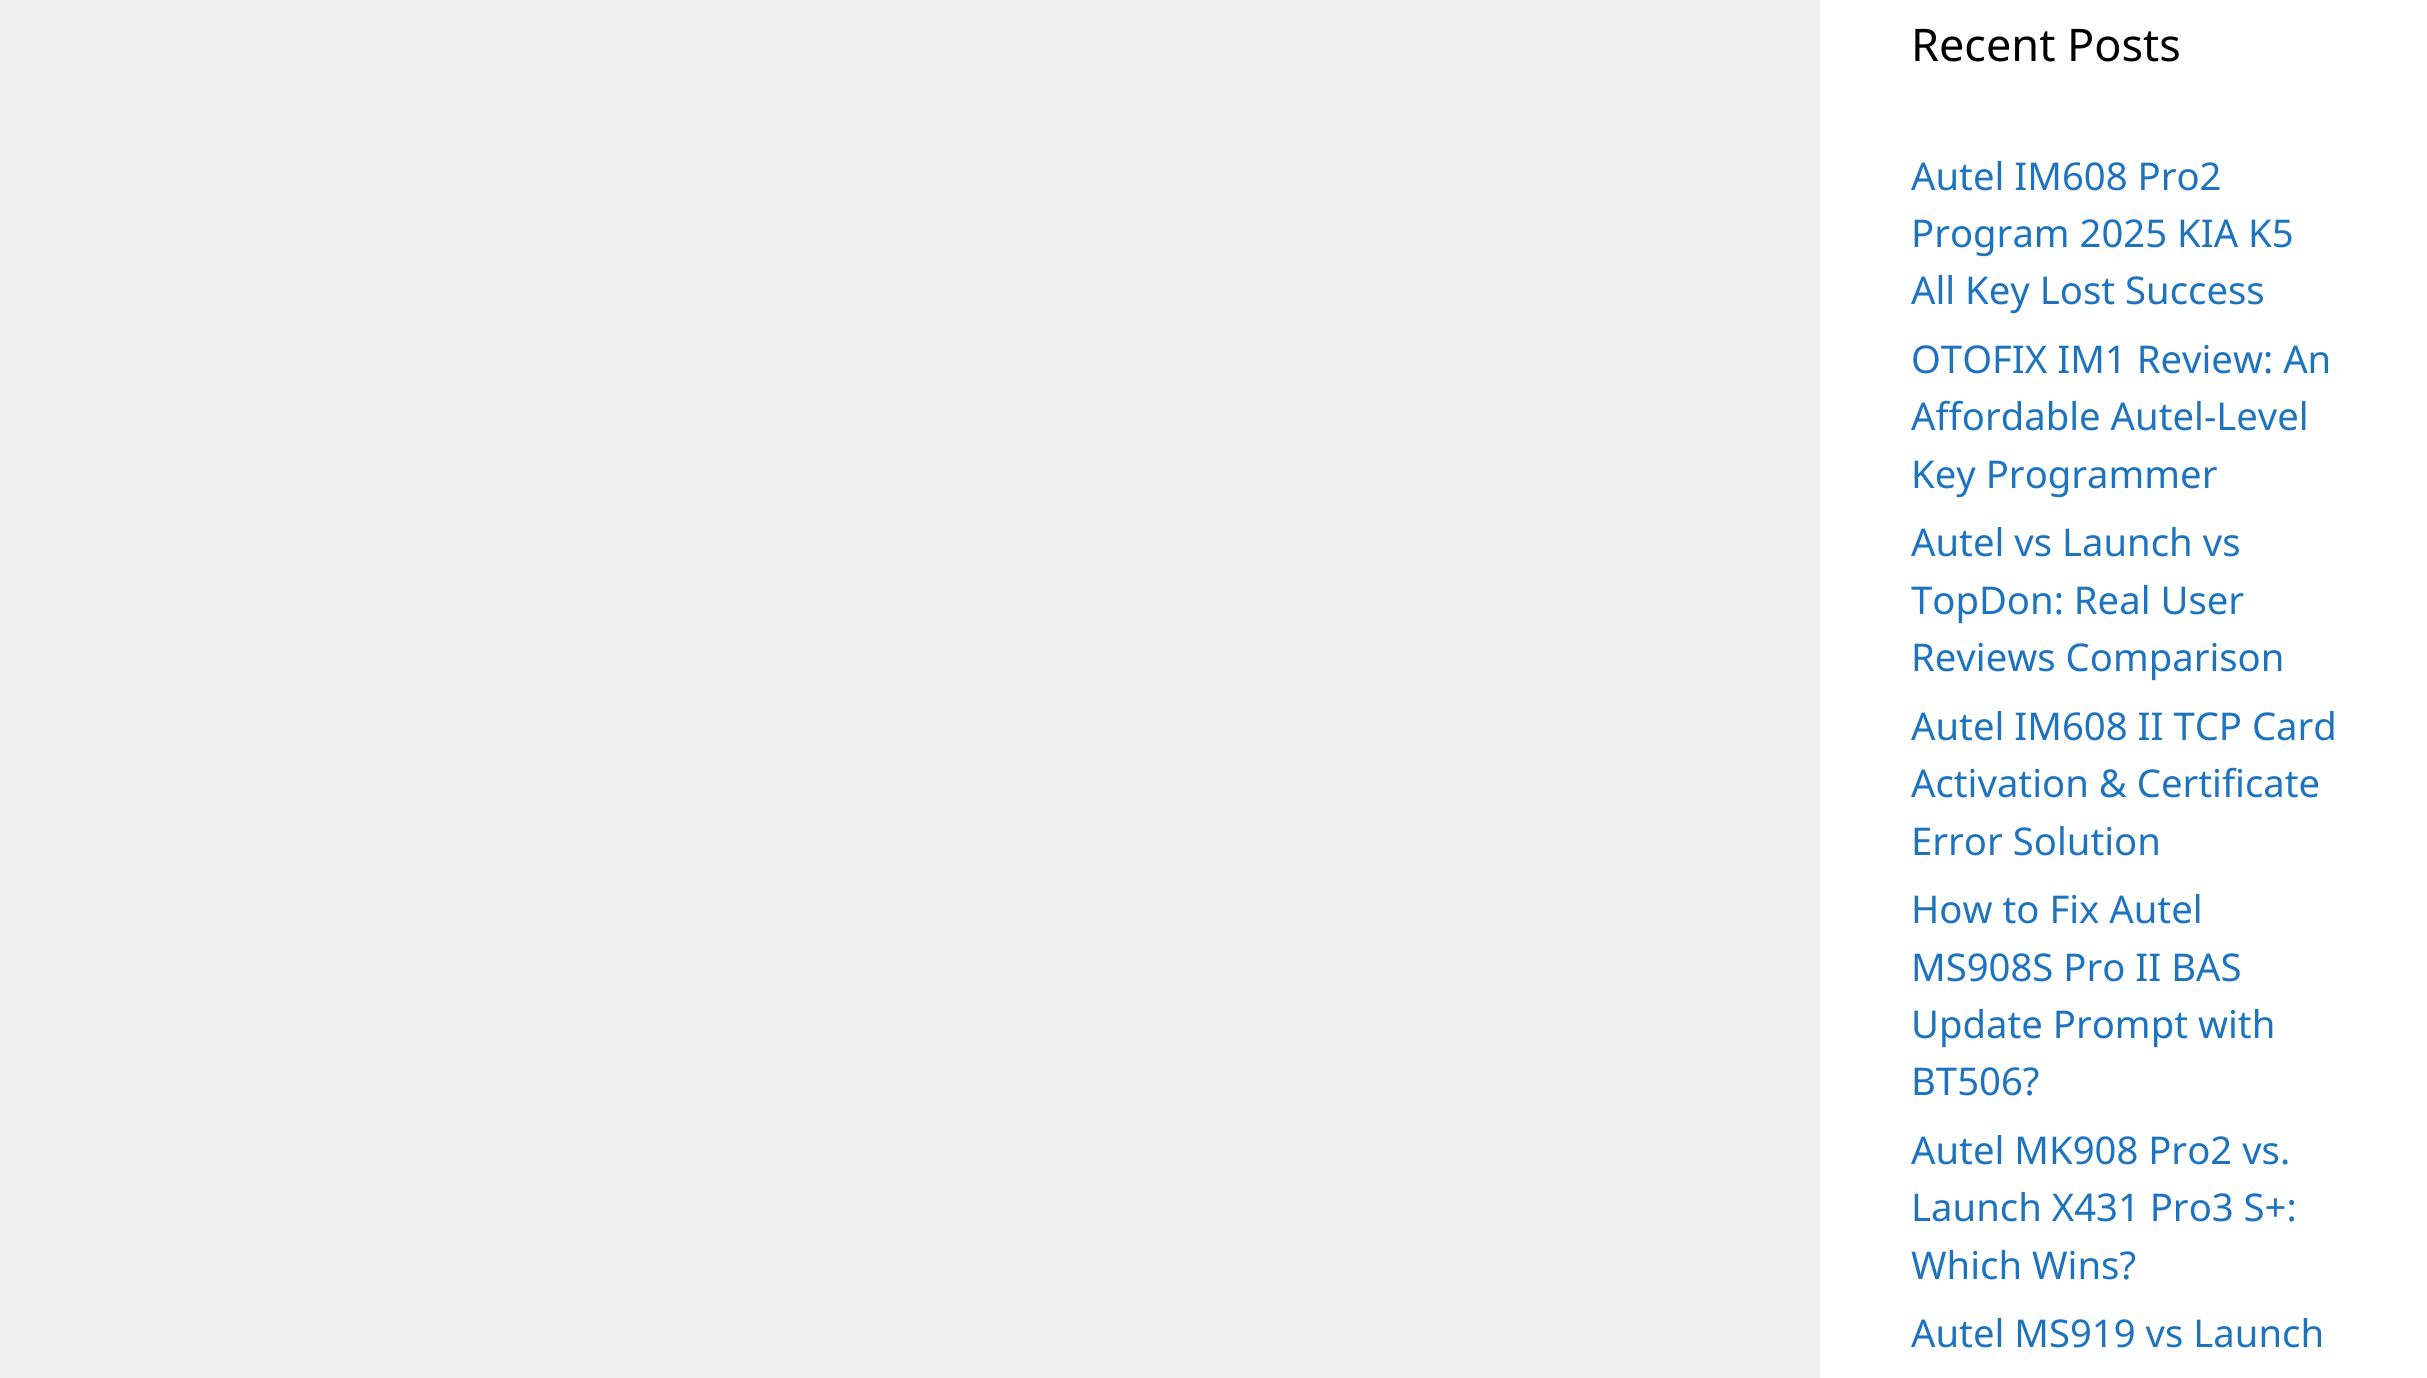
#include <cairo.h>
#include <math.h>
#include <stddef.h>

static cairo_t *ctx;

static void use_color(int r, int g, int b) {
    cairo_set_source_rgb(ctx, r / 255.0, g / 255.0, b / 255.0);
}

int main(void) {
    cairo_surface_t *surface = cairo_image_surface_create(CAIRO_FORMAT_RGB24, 2427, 1378);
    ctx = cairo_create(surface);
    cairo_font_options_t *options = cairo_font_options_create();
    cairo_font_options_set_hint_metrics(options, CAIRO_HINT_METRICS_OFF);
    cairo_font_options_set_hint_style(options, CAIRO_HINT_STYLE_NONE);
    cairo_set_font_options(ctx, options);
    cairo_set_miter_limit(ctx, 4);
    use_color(239, 239, 239);
    cairo_paint(ctx);
    use_color(255, 255, 255);
    cairo_rectangle(ctx, 1820, 0, 607, 1378);
    cairo_fill(ctx);
    cairo_select_font_face(ctx, "Noto Sans", CAIRO_FONT_SLANT_NORMAL, CAIRO_FONT_WEIGHT_NORMAL);
    cairo_set_font_size(ctx, 45);
    use_color(0, 0, 0);
    cairo_move_to(ctx, 1911, 61);
    cairo_show_text(ctx, "Recent Posts");
    cairo_set_font_size(ctx, 38.25);
    use_color(30, 115, 190);
    cairo_move_to(ctx, 1911, 190);
    cairo_show_text(ctx, "Autel IM608 Pro2");
    cairo_move_to(ctx, 1911, 247);
    cairo_show_text(ctx, "Program 2025 KIA K5");
    cairo_move_to(ctx, 1911, 304);
    cairo_show_text(ctx, "All Key Lost Success");
    cairo_move_to(ctx, 1911, 373);
    cairo_show_text(ctx, "OTOFIX IM1 Review: An");
    cairo_move_to(ctx, 1911, 430);
    cairo_show_text(ctx, "Affordable Autel-Level");
    cairo_move_to(ctx, 1911, 488);
    cairo_show_text(ctx, "Key Programmer");
    cairo_move_to(ctx, 1911, 556);
    cairo_show_text(ctx, "Autel vs Launch vs");
    cairo_move_to(ctx, 1911, 614);
    cairo_show_text(ctx, "TopDon: Real User");
    cairo_move_to(ctx, 1911, 671);
    cairo_show_text(ctx, "Reviews Comparison");
    cairo_move_to(ctx, 1911, 740);
    cairo_show_text(ctx, "Autel IM608 II TCP Card");
    cairo_move_to(ctx, 1911, 797);
    cairo_show_text(ctx, "Activation & Certificate");
    cairo_move_to(ctx, 1911, 855);
    cairo_show_text(ctx, "Error Solution");
    cairo_move_to(ctx, 1911, 923);
    cairo_show_text(ctx, "How to Fix Autel");
    cairo_move_to(ctx, 1911, 981);
    cairo_show_text(ctx, "MS908S Pro II BAS");
    cairo_move_to(ctx, 1911, 1038);
    cairo_show_text(ctx, "Update Prompt with");
    cairo_move_to(ctx, 1911, 1095);
    cairo_show_text(ctx, "BT506?");
    cairo_move_to(ctx, 1911, 1164);
    cairo_show_text(ctx, "Autel MK908 Pro2 vs.");
    cairo_move_to(ctx, 1911, 1221);
    cairo_show_text(ctx, "Launch X431 Pro3 S+:");
    cairo_move_to(ctx, 1911, 1279);
    cairo_show_text(ctx, "Which Wins?");
    cairo_move_to(ctx, 1911, 1347);
    cairo_show_text(ctx, "Autel MS919 vs Launch");
    cairo_surface_write_to_png(surface, "result.png");
    cairo_font_options_destroy(options);
    cairo_destroy(ctx);
    cairo_surface_destroy(surface);
    return 0;
}
